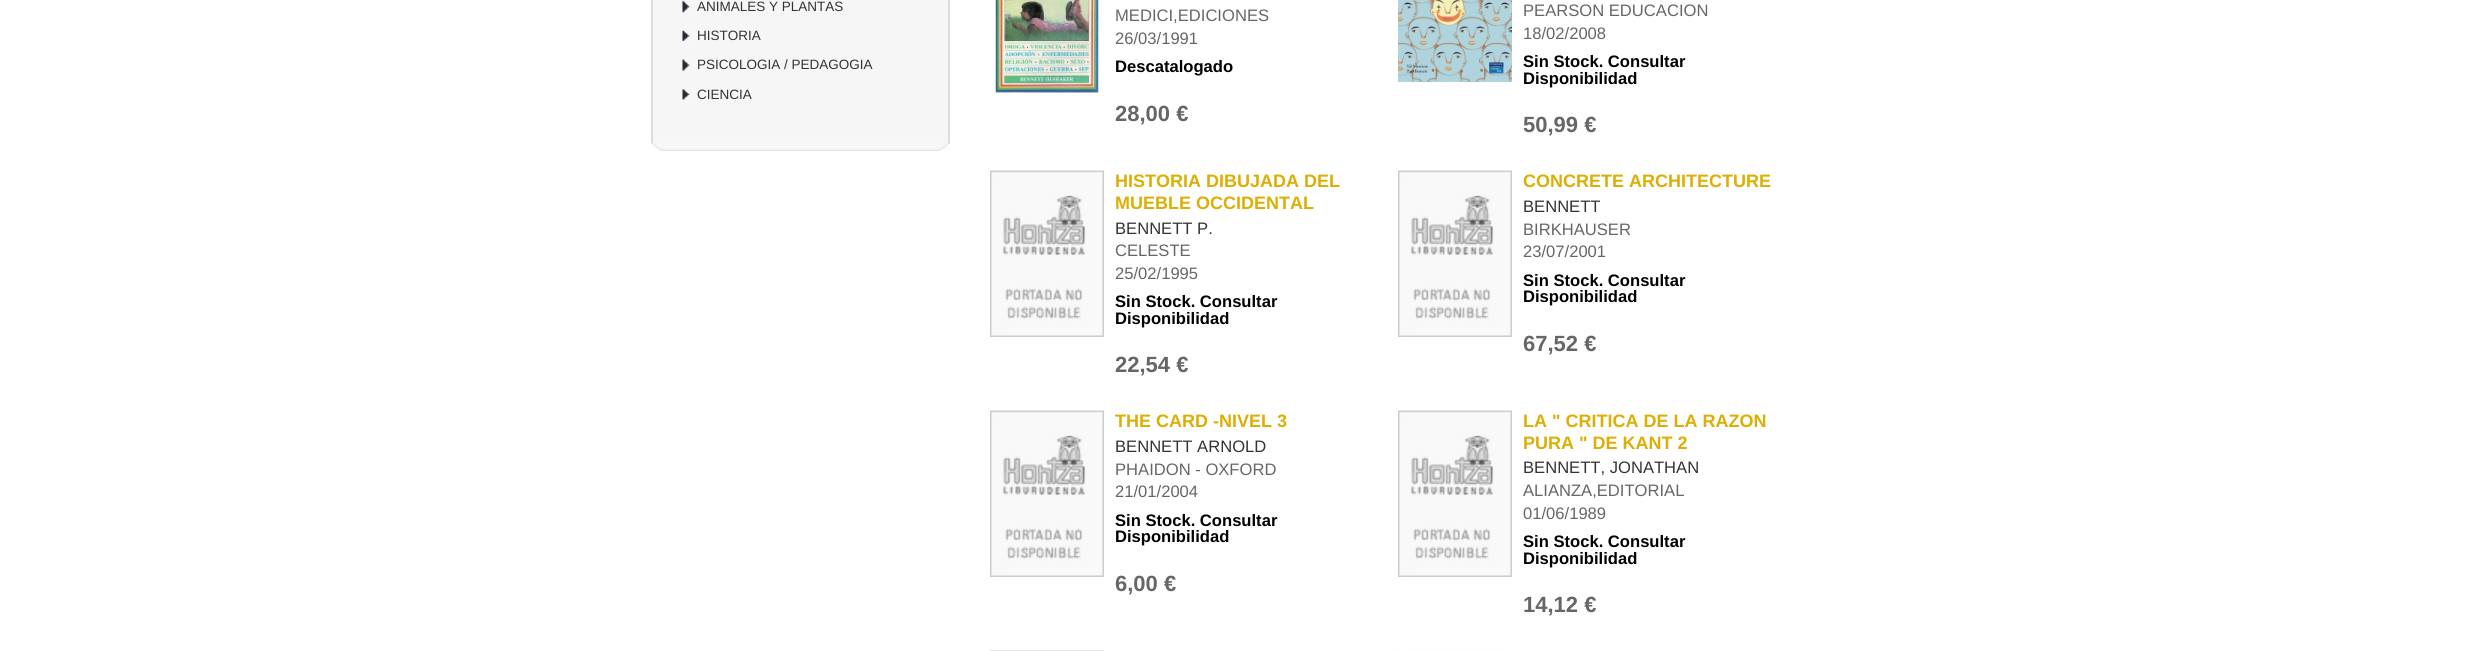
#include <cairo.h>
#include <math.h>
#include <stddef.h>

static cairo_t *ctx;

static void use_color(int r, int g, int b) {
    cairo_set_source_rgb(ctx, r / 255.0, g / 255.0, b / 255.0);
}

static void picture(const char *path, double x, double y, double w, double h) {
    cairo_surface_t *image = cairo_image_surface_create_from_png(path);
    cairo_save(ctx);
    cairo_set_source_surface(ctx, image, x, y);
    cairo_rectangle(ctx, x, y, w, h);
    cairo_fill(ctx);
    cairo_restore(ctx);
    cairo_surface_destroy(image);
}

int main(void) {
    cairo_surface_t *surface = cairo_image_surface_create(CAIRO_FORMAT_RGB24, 2466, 651);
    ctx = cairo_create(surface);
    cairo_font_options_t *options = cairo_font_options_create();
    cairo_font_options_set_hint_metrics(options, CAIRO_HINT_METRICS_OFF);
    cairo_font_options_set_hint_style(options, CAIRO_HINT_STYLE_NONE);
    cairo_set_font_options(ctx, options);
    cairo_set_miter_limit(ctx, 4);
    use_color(255, 255, 255);
    cairo_paint(ctx);
    use_color(246, 246, 246);
    cairo_rectangle(ctx, 653, 0, 295, 144);
    cairo_fill(ctx);
    use_color(221, 221, 221);
    cairo_rectangle(ctx, 948, 0, 2, 144);
    cairo_fill(ctx);
    cairo_rectangle(ctx, 651, 0, 2, 144);
    cairo_fill(ctx);
    picture("img1.png", 682, 0, 8, 13);
    cairo_select_font_face(ctx, "Liberation Sans", CAIRO_FONT_SLANT_NORMAL, CAIRO_FONT_WEIGHT_NORMAL);
    cairo_set_font_size(ctx, 13.5);
    use_color(51, 51, 51);
    cairo_move_to(ctx, 697, 11);
    cairo_show_text(ctx, "ANIMALES Y PLANTAS");
    picture("img2.png", 682, 30, 8, 12);
    cairo_move_to(ctx, 697, 40);
    cairo_show_text(ctx, "HISTORIA");
    picture("img3.png", 682, 59, 8, 12);
    cairo_move_to(ctx, 697, 69);
    cairo_show_text(ctx, "PSICOLOGIA / PEDAGOGIA");
    picture("img4.png", 682, 89, 8, 11);
    cairo_move_to(ctx, 697, 99);
    cairo_show_text(ctx, "CIENCIA");
    picture("img5.png", 651, 143, 299, 8);
    picture("img6.png", 994, 0, 106, 93);
    cairo_set_font_size(ctx, 16.6);
    use_color(102, 102, 102);
    cairo_move_to(ctx, 1115, 21);
    cairo_show_text(ctx, "MEDICI,EDICIONES");
    cairo_move_to(ctx, 1115, 44);
    cairo_show_text(ctx, "26/03/1991");
    cairo_select_font_face(ctx, "Liberation Sans", CAIRO_FONT_SLANT_NORMAL, CAIRO_FONT_WEIGHT_BOLD);
    use_color(0, 0, 0);
    cairo_move_to(ctx, 1115, 72);
    cairo_show_text(ctx, "Descatalogado");
    cairo_set_font_size(ctx, 22);
    use_color(102, 102, 102);
    cairo_move_to(ctx, 1115, 121);
    cairo_show_text(ctx, "28,00 €");
    picture("img7.png", 1398, 0, 114, 82);
    cairo_select_font_face(ctx, "Liberation Sans", CAIRO_FONT_SLANT_NORMAL, CAIRO_FONT_WEIGHT_NORMAL);
    cairo_set_font_size(ctx, 16.6);
    cairo_move_to(ctx, 1523, 16);
    cairo_show_text(ctx, "PEARSON EDUCACION");
    cairo_move_to(ctx, 1523, 39);
    cairo_show_text(ctx, "18/02/2008");
    cairo_select_font_face(ctx, "Liberation Sans", CAIRO_FONT_SLANT_NORMAL, CAIRO_FONT_WEIGHT_BOLD);
    use_color(0, 0, 0);
    cairo_move_to(ctx, 1523, 67);
    cairo_show_text(ctx, "Sin Stock. Consultar");
    cairo_move_to(ctx, 1523, 84);
    cairo_show_text(ctx, "Disponibilidad");
    cairo_set_font_size(ctx, 22);
    use_color(102, 102, 102);
    cairo_move_to(ctx, 1523, 132);
    cairo_show_text(ctx, "50,99 €");
    picture("img8.png", 990, 170, 114, 167);
    cairo_set_font_size(ctx, 18);
    use_color(221, 174, 4);
    cairo_move_to(ctx, 1115, 187);
    cairo_show_text(ctx, "HISTORIA DIBUJADA DEL");
    cairo_move_to(ctx, 1115, 209);
    cairo_show_text(ctx, "MUEBLE OCCIDENTAL");
    cairo_select_font_face(ctx, "Liberation Sans", CAIRO_FONT_SLANT_NORMAL, CAIRO_FONT_WEIGHT_NORMAL);
    cairo_set_font_size(ctx, 16.6);
    use_color(51, 51, 51);
    cairo_move_to(ctx, 1115, 234);
    cairo_show_text(ctx, "BENNETT P.");
    use_color(102, 102, 102);
    cairo_move_to(ctx, 1115, 256);
    cairo_show_text(ctx, "CELESTE");
    cairo_move_to(ctx, 1115, 279);
    cairo_show_text(ctx, "25/02/1995");
    cairo_select_font_face(ctx, "Liberation Sans", CAIRO_FONT_SLANT_NORMAL, CAIRO_FONT_WEIGHT_BOLD);
    use_color(0, 0, 0);
    cairo_move_to(ctx, 1115, 307);
    cairo_show_text(ctx, "Sin Stock. Consultar");
    cairo_move_to(ctx, 1115, 324);
    cairo_show_text(ctx, "Disponibilidad");
    cairo_set_font_size(ctx, 22);
    use_color(102, 102, 102);
    cairo_move_to(ctx, 1115, 372);
    cairo_show_text(ctx, "22,54 €");
    picture("img8.png", 1398, 170, 114, 167);
    cairo_set_font_size(ctx, 18);
    use_color(221, 174, 4);
    cairo_move_to(ctx, 1523, 187);
    cairo_show_text(ctx, "CONCRETE ARCHITECTURE");
    cairo_select_font_face(ctx, "Liberation Sans", CAIRO_FONT_SLANT_NORMAL, CAIRO_FONT_WEIGHT_NORMAL);
    cairo_set_font_size(ctx, 16.6);
    use_color(51, 51, 51);
    cairo_move_to(ctx, 1523, 212);
    cairo_show_text(ctx, "BENNETT");
    use_color(102, 102, 102);
    cairo_move_to(ctx, 1523, 235);
    cairo_show_text(ctx, "BIRKHAUSER");
    cairo_move_to(ctx, 1523, 257);
    cairo_show_text(ctx, "23/07/2001");
    cairo_select_font_face(ctx, "Liberation Sans", CAIRO_FONT_SLANT_NORMAL, CAIRO_FONT_WEIGHT_BOLD);
    use_color(0, 0, 0);
    cairo_move_to(ctx, 1523, 286);
    cairo_show_text(ctx, "Sin Stock. Consultar");
    cairo_move_to(ctx, 1523, 302);
    cairo_show_text(ctx, "Disponibilidad");
    cairo_set_font_size(ctx, 22);
    use_color(102, 102, 102);
    cairo_move_to(ctx, 1523, 351);
    cairo_show_text(ctx, "67,52 €");
    picture("img8.png", 990, 410, 114, 167);
    cairo_set_font_size(ctx, 18);
    use_color(221, 174, 4);
    cairo_move_to(ctx, 1115, 427);
    cairo_show_text(ctx, "THE CARD -NIVEL 3");
    cairo_select_font_face(ctx, "Liberation Sans", CAIRO_FONT_SLANT_NORMAL, CAIRO_FONT_WEIGHT_NORMAL);
    cairo_set_font_size(ctx, 16.6);
    use_color(51, 51, 51);
    cairo_move_to(ctx, 1115, 452);
    cairo_show_text(ctx, "BENNETT ARNOLD");
    use_color(102, 102, 102);
    cairo_move_to(ctx, 1115, 475);
    cairo_show_text(ctx, "PHAIDON - OXFORD");
    cairo_move_to(ctx, 1115, 497);
    cairo_show_text(ctx, "21/01/2004");
    cairo_select_font_face(ctx, "Liberation Sans", CAIRO_FONT_SLANT_NORMAL, CAIRO_FONT_WEIGHT_BOLD);
    use_color(0, 0, 0);
    cairo_move_to(ctx, 1115, 526);
    cairo_show_text(ctx, "Sin Stock. Consultar");
    cairo_move_to(ctx, 1115, 542);
    cairo_show_text(ctx, "Disponibilidad");
    cairo_set_font_size(ctx, 22);
    use_color(102, 102, 102);
    cairo_move_to(ctx, 1115, 591);
    cairo_show_text(ctx, "6,00 €");
    picture("img8.png", 1398, 410, 114, 167);
    cairo_set_font_size(ctx, 18);
    use_color(221, 174, 4);
    cairo_move_to(ctx, 1523, 427);
    cairo_show_text(ctx, "LA \" CRITICA DE LA RAZON");
    cairo_move_to(ctx, 1523, 449);
    cairo_show_text(ctx, "PURA \" DE KANT 2");
    cairo_select_font_face(ctx, "Liberation Sans", CAIRO_FONT_SLANT_NORMAL, CAIRO_FONT_WEIGHT_NORMAL);
    cairo_set_font_size(ctx, 16.6);
    use_color(51, 51, 51);
    cairo_move_to(ctx, 1523, 473);
    cairo_show_text(ctx, "BENNETT, JONATHAN");
    use_color(102, 102, 102);
    cairo_move_to(ctx, 1523, 496);
    cairo_show_text(ctx, "ALIANZA,EDITORIAL");
    cairo_move_to(ctx, 1523, 519);
    cairo_show_text(ctx, "01/06/1989");
    cairo_select_font_face(ctx, "Liberation Sans", CAIRO_FONT_SLANT_NORMAL, CAIRO_FONT_WEIGHT_BOLD);
    use_color(0, 0, 0);
    cairo_move_to(ctx, 1523, 547);
    cairo_show_text(ctx, "Sin Stock. Consultar");
    cairo_move_to(ctx, 1523, 564);
    cairo_show_text(ctx, "Disponibilidad");
    cairo_set_font_size(ctx, 22);
    use_color(102, 102, 102);
    cairo_move_to(ctx, 1523, 612);
    cairo_show_text(ctx, "14,12 €");
    picture("img9.png", 990, 650, 114, 1);
    picture("img10.png", 1398, 650, 114, 1);
    cairo_surface_write_to_png(surface, "result.png");
    cairo_font_options_destroy(options);
    cairo_destroy(ctx);
    cairo_surface_destroy(surface);
    return 0;
}
